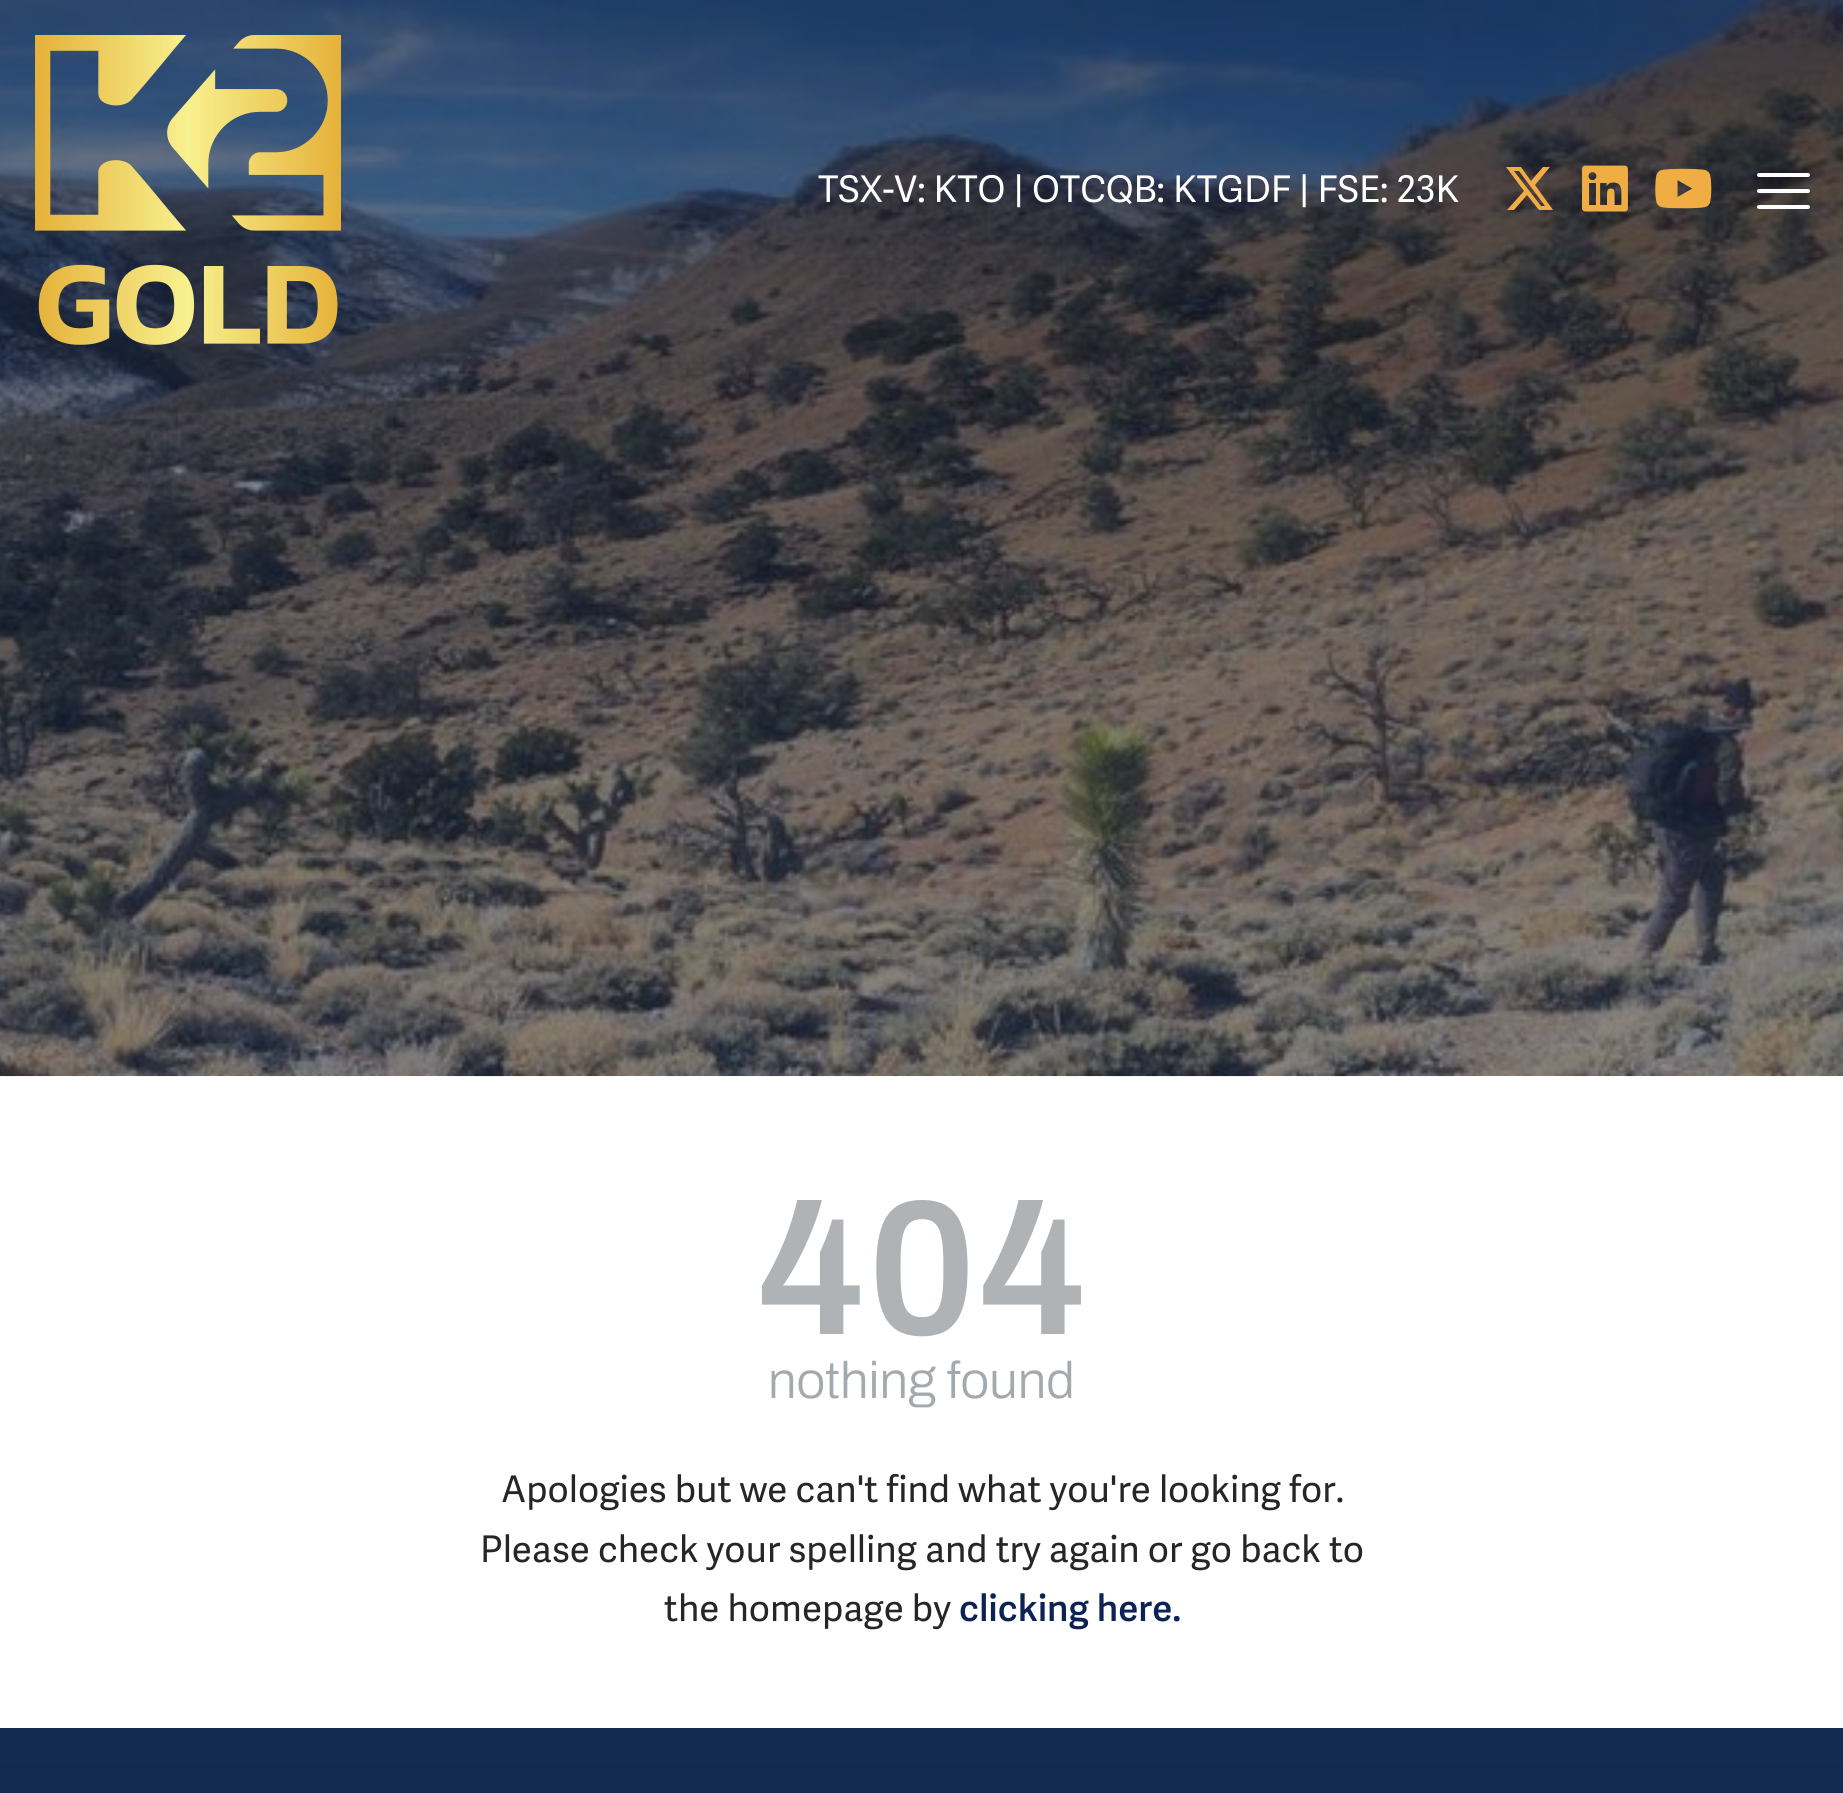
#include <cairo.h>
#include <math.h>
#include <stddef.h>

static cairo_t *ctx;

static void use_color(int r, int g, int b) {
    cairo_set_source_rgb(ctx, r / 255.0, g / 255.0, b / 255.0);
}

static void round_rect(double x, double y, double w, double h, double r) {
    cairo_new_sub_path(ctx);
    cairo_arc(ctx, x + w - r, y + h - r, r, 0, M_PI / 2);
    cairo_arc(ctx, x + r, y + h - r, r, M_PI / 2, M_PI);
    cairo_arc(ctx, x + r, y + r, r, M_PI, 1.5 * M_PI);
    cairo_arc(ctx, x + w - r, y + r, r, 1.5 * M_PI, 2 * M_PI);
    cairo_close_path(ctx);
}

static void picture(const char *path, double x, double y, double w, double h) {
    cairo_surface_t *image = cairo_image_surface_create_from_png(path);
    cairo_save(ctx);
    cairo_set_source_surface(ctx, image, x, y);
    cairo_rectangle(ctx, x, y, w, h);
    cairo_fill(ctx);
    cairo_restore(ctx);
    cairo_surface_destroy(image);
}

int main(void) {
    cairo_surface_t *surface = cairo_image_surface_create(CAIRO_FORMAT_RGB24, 1843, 1793);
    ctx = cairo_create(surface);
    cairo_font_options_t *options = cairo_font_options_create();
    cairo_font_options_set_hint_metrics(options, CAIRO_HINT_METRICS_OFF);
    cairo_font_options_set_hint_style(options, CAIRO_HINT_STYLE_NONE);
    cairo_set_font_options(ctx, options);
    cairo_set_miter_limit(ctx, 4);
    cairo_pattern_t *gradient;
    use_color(255, 255, 255);
    cairo_paint(ctx);
    picture("img4.png", 0, 0, 1843, 1077);
    picture("img1.png", 35, 35, 306, 310);
    cairo_select_font_face(ctx, "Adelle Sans", CAIRO_FONT_SLANT_NORMAL, CAIRO_FONT_WEIGHT_NORMAL);
    cairo_set_font_size(ctx, 36.75);
    use_color(255, 255, 255);
    cairo_move_to(ctx, 818, 202);
    cairo_show_text(ctx, "TSX-V: KTO | OTCQB: KTGDF | FSE: 23K");
    use_color(239, 173, 67);
    cairo_new_path(ctx);
    cairo_move_to(ctx, 1543, 167);
    cairo_line_to(ctx, 1550, 167);
    cairo_line_to(ctx, 1535, 185);
    cairo_line_to(ctx, 1553, 210);
    cairo_line_to(ctx, 1539, 210);
    cairo_line_to(ctx, 1527, 195);
    cairo_line_to(ctx, 1514, 210);
    cairo_line_to(ctx, 1507, 210);
    cairo_line_to(ctx, 1524, 191);
    cairo_line_to(ctx, 1506, 167);
    cairo_line_to(ctx, 1521, 167);
    cairo_line_to(ctx, 1531, 181);
    cairo_close_path(ctx);
    cairo_move_to(ctx, 1541, 206);
    cairo_line_to(ctx, 1545, 206);
    cairo_line_to(ctx, 1519, 171);
    cairo_line_to(ctx, 1514, 171);
    cairo_close_path(ctx);
    cairo_fill(ctx);
    picture("img2.png", 1582, 165, 46, 47);
    picture("img3.png", 1655, 168, 57, 41);
    use_color(255, 255, 255);
    round_rect(1757, 173, 53, 4, 2);
    cairo_fill(ctx);
    round_rect(1757, 189, 53, 4, 2);
    cairo_fill(ctx);
    round_rect(1757, 205, 53, 4, 2);
    cairo_fill(ctx);
    cairo_select_font_face(ctx, "Archivo SemiBold", CAIRO_FONT_SLANT_NORMAL, CAIRO_FONT_WEIGHT_NORMAL);
    cairo_set_font_size(ctx, 192);
    use_color(176, 179, 181);
    cairo_move_to(ctx, 756, 1334);
    cairo_show_text(ctx, "404");
    cairo_select_font_face(ctx, "Archivo Light", CAIRO_FONT_SLANT_NORMAL, CAIRO_FONT_WEIGHT_NORMAL);
    cairo_set_font_size(ctx, 51.5);
    use_color(164, 169, 173);
    cairo_move_to(ctx, 768, 1398);
    cairo_show_text(ctx, "nothing found");
    cairo_select_font_face(ctx, "Adelle Sans", CAIRO_FONT_SLANT_NORMAL, CAIRO_FONT_WEIGHT_NORMAL);
    cairo_set_font_size(ctx, 36.75);
    use_color(38, 38, 38);
    cairo_move_to(ctx, 501, 1502);
    cairo_show_text(ctx, "Apologies but we can't find what you're looking for.");
    cairo_move_to(ctx, 480, 1562);
    cairo_show_text(ctx, "Please check your spelling and try again or go back to");
    cairo_move_to(ctx, 664, 1621);
    cairo_show_text(ctx, "the homepage by");
    cairo_select_font_face(ctx, "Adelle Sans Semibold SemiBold", CAIRO_FONT_SLANT_NORMAL, CAIRO_FONT_WEIGHT_NORMAL);
    use_color(13, 35, 85);
    cairo_move_to(ctx, 959, 1621);
    cairo_show_text(ctx, "clicking here.");
    gradient = cairo_pattern_create_linear(922, 1727, 922, 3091);
    cairo_pattern_add_color_stop_rgba(gradient, 0, 0.078, 0.165, 0.318, 1);
    cairo_pattern_add_color_stop_rgba(gradient, 1, 0.027, 0.082, 0.188, 1);
    cairo_set_source(ctx, gradient);
    cairo_pattern_destroy(gradient);
    cairo_rectangle(ctx, 0, 1728, 1843, 65);
    cairo_fill(ctx);
    cairo_surface_write_to_png(surface, "result.png");
    cairo_font_options_destroy(options);
    cairo_destroy(ctx);
    cairo_surface_destroy(surface);
    return 0;
}
